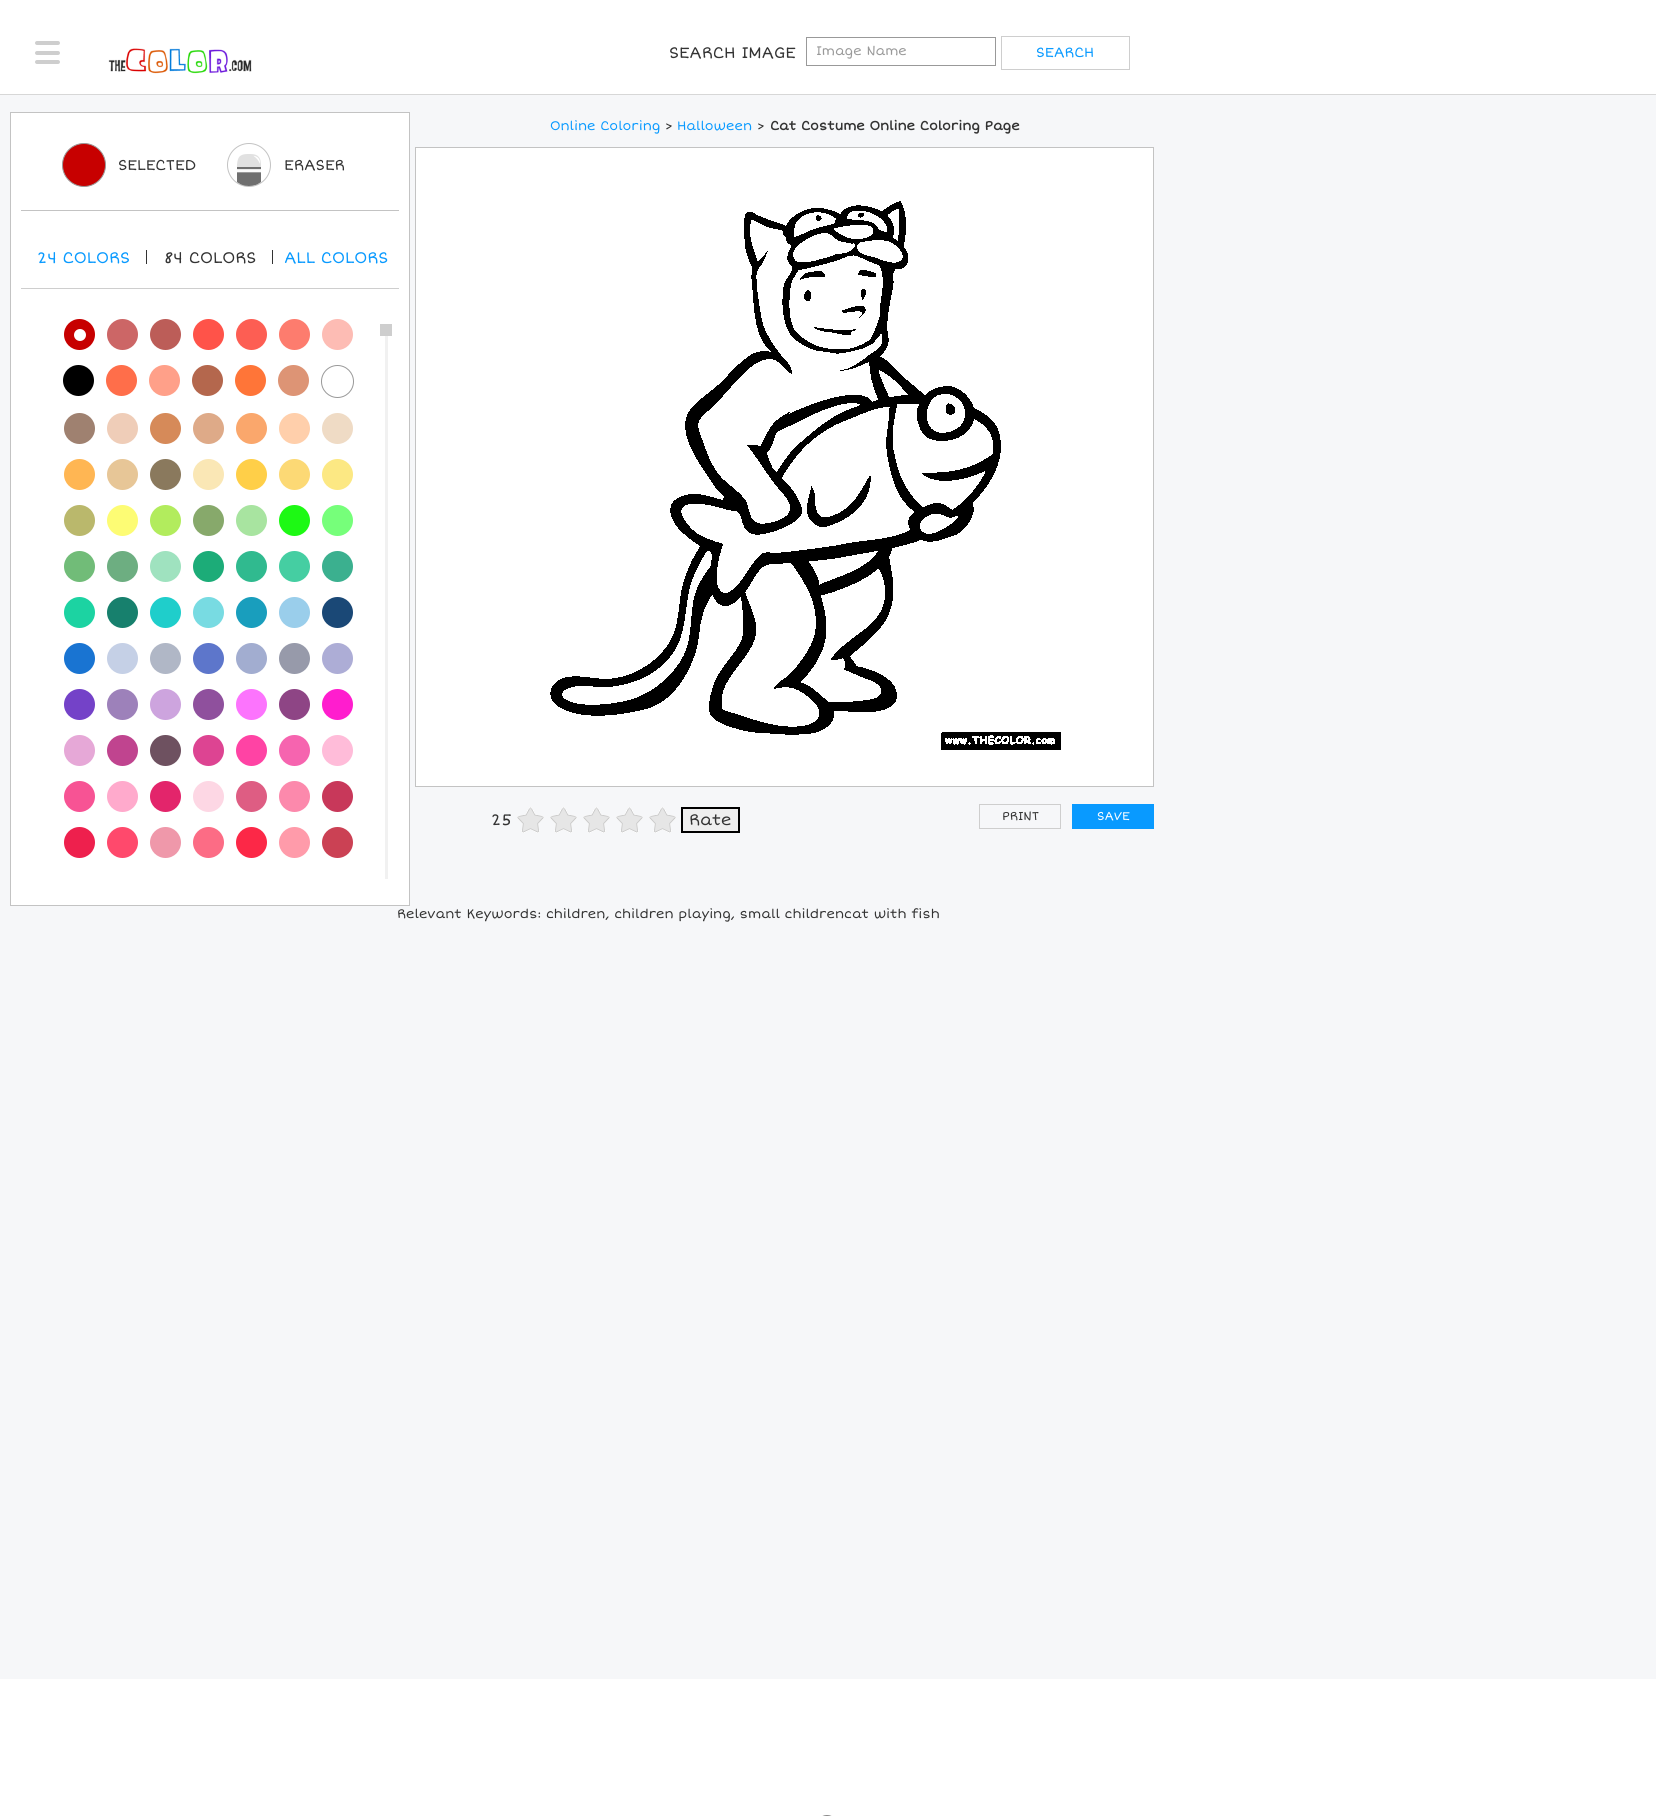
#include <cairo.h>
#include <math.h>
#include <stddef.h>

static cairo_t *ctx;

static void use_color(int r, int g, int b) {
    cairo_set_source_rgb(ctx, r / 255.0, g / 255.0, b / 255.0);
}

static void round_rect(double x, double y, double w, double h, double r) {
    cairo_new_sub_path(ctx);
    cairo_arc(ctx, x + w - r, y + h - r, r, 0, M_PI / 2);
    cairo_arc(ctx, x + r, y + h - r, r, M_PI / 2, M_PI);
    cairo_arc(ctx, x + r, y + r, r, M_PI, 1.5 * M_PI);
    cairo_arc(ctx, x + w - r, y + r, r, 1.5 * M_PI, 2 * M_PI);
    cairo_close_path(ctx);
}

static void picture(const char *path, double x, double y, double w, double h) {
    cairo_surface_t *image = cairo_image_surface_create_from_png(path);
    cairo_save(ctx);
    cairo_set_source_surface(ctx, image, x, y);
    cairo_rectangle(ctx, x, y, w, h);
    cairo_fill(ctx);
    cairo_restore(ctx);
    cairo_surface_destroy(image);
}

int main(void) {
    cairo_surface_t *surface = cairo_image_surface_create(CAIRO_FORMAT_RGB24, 1656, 1816);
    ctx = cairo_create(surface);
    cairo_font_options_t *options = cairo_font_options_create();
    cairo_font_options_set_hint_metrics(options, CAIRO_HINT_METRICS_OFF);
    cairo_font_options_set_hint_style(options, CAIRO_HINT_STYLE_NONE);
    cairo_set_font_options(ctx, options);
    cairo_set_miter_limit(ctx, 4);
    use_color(246, 247, 249);
    cairo_paint(ctx);
    use_color(255, 255, 255);
    cairo_rectangle(ctx, 0, 0, 1656, 94);
    cairo_fill(ctx);
    use_color(215, 215, 215);
    cairo_rectangle(ctx, 0, 94, 1656, 1);
    cairo_fill(ctx);
    use_color(206, 206, 206);
    round_rect(35, 41, 25, 4, 2);
    cairo_fill(ctx);
    round_rect(35, 51, 25, 4, 2);
    cairo_fill(ctx);
    round_rect(35, 60, 25, 4, 2);
    cairo_fill(ctx);
    picture("img1.png", 108, 48, 144, 26);
    cairo_select_font_face(ctx, "Short Stack", CAIRO_FONT_SLANT_NORMAL, CAIRO_FONT_WEIGHT_NORMAL);
    cairo_set_font_size(ctx, 16);
    use_color(51, 51, 51);
    cairo_move_to(ctx, 669, 58);
    cairo_show_text(ctx, "SEARCH IMAGE");
    cairo_rectangle(ctx, 806.5, 37.5, 189, 28);
    use_color(153, 153, 153);
    cairo_set_line_width(ctx, 1);
    cairo_stroke(ctx);
    cairo_set_font_size(ctx, 13);
    cairo_move_to(ctx, 816, 55);
    cairo_show_text(ctx, "Image Name");
    cairo_rectangle(ctx, 1001.5, 36.5, 128, 33);
    use_color(206, 206, 206);
    cairo_stroke(ctx);
    cairo_set_font_size(ctx, 14);
    use_color(9, 154, 255);
    cairo_move_to(ctx, 1036, 57);
    cairo_show_text(ctx, "SEARCH");
    use_color(255, 255, 255);
    cairo_rectangle(ctx, 10.5, 112.5, 399, 793);
    cairo_fill_preserve(ctx);
    use_color(195, 195, 195);
    cairo_stroke(ctx);
    cairo_rectangle(ctx, 21, 210, 378, 1);
    cairo_fill(ctx);
    use_color(199, 0, 0);
    cairo_arc(ctx, 84, 165, 21.5, 0, 2 * M_PI);
    cairo_fill_preserve(ctx);
    use_color(153, 153, 153);
    cairo_stroke(ctx);
    cairo_set_font_size(ctx, 15);
    use_color(51, 51, 51);
    cairo_move_to(ctx, 118, 170);
    cairo_show_text(ctx, "SELECTED");
    cairo_new_path(ctx);
    cairo_arc(ctx, 249, 165, 21.5, 0, 2 * M_PI);
    use_color(195, 195, 195);
    cairo_stroke(ctx);
    picture("img2.png", 237, 154, 24, 32);
    use_color(51, 51, 51);
    cairo_move_to(ctx, 284, 170);
    cairo_show_text(ctx, "ERASER");
    use_color(206, 206, 206);
    cairo_rectangle(ctx, 21, 288, 378, 1);
    cairo_fill(ctx);
    cairo_set_font_size(ctx, 16);
    use_color(9, 154, 255);
    cairo_move_to(ctx, 37, 263);
    cairo_show_text(ctx, "24 COLORS");
    use_color(51, 51, 51);
    cairo_rectangle(ctx, 146, 250, 1, 14);
    cairo_fill(ctx);
    cairo_move_to(ctx, 164, 263);
    cairo_show_text(ctx, "84 COLORS");
    cairo_rectangle(ctx, 272, 250, 1, 14);
    cairo_fill(ctx);
    use_color(9, 154, 255);
    cairo_move_to(ctx, 284, 263);
    cairo_show_text(ctx, "ALL COLORS");
    use_color(199, 0, 0);
    cairo_new_path(ctx);
    cairo_arc(ctx, 79.5, 334.5, 15.5, 0, 2 * M_PI);
    cairo_fill(ctx);
    use_color(255, 255, 255);
    cairo_arc(ctx, 80, 335, 6, 0, 2 * M_PI);
    cairo_fill(ctx);
    use_color(204, 102, 102);
    cairo_arc(ctx, 122.5, 334.5, 15.5, 0, 2 * M_PI);
    cairo_fill(ctx);
    use_color(188, 93, 88);
    cairo_arc(ctx, 165.5, 334.5, 15.5, 0, 2 * M_PI);
    cairo_fill(ctx);
    use_color(255, 83, 73);
    cairo_arc(ctx, 208.5, 334.5, 15.5, 0, 2 * M_PI);
    cairo_fill(ctx);
    use_color(253, 94, 83);
    cairo_arc(ctx, 251.5, 334.5, 15.5, 0, 2 * M_PI);
    cairo_fill(ctx);
    use_color(253, 124, 110);
    cairo_arc(ctx, 294.5, 334.5, 15.5, 0, 2 * M_PI);
    cairo_fill(ctx);
    use_color(253, 188, 180);
    cairo_arc(ctx, 337.5, 334.5, 15.5, 0, 2 * M_PI);
    cairo_fill(ctx);
    use_color(0, 0, 0);
    cairo_arc(ctx, 78.5, 380.5, 15.5, 0, 2 * M_PI);
    cairo_fill(ctx);
    use_color(255, 110, 74);
    cairo_arc(ctx, 121.5, 380.5, 15.5, 0, 2 * M_PI);
    cairo_fill(ctx);
    use_color(255, 160, 137);
    cairo_arc(ctx, 164.5, 380.5, 15.5, 0, 2 * M_PI);
    cairo_fill(ctx);
    use_color(180, 103, 77);
    cairo_arc(ctx, 207.5, 380.5, 15.5, 0, 2 * M_PI);
    cairo_fill(ctx);
    use_color(255, 117, 56);
    cairo_arc(ctx, 250.5, 380.5, 15.5, 0, 2 * M_PI);
    cairo_fill(ctx);
    use_color(221, 148, 117);
    cairo_arc(ctx, 293.5, 380.5, 15.5, 0, 2 * M_PI);
    cairo_fill(ctx);
    cairo_arc(ctx, 337.5, 381.5, 16, 0, 2 * M_PI);
    use_color(153, 153, 153);
    cairo_stroke(ctx);
    use_color(159, 129, 112);
    cairo_arc(ctx, 79.5, 428.5, 15.5, 0, 2 * M_PI);
    cairo_fill(ctx);
    use_color(239, 205, 184);
    cairo_arc(ctx, 122.5, 428.5, 15.5, 0, 2 * M_PI);
    cairo_fill(ctx);
    use_color(214, 138, 89);
    cairo_arc(ctx, 165.5, 428.5, 15.5, 0, 2 * M_PI);
    cairo_fill(ctx);
    use_color(222, 170, 136);
    cairo_arc(ctx, 208.5, 428.5, 15.5, 0, 2 * M_PI);
    cairo_fill(ctx);
    use_color(250, 167, 108);
    cairo_arc(ctx, 251.5, 428.5, 15.5, 0, 2 * M_PI);
    cairo_fill(ctx);
    use_color(255, 207, 171);
    cairo_arc(ctx, 294.5, 428.5, 15.5, 0, 2 * M_PI);
    cairo_fill(ctx);
    use_color(239, 219, 197);
    cairo_arc(ctx, 337.5, 428.5, 15.5, 0, 2 * M_PI);
    cairo_fill(ctx);
    use_color(255, 182, 83);
    cairo_arc(ctx, 79.5, 474.5, 15.5, 0, 2 * M_PI);
    cairo_fill(ctx);
    use_color(231, 198, 151);
    cairo_arc(ctx, 122.5, 474.5, 15.5, 0, 2 * M_PI);
    cairo_fill(ctx);
    use_color(138, 121, 93);
    cairo_arc(ctx, 165.5, 474.5, 15.5, 0, 2 * M_PI);
    cairo_fill(ctx);
    use_color(250, 231, 181);
    cairo_arc(ctx, 208.5, 474.5, 15.5, 0, 2 * M_PI);
    cairo_fill(ctx);
    use_color(255, 207, 72);
    cairo_arc(ctx, 251.5, 474.5, 15.5, 0, 2 * M_PI);
    cairo_fill(ctx);
    use_color(252, 217, 117);
    cairo_arc(ctx, 294.5, 474.5, 15.5, 0, 2 * M_PI);
    cairo_fill(ctx);
    use_color(252, 232, 131);
    cairo_arc(ctx, 337.5, 474.5, 15.5, 0, 2 * M_PI);
    cairo_fill(ctx);
    use_color(186, 184, 108);
    cairo_arc(ctx, 79.5, 520.5, 15.5, 0, 2 * M_PI);
    cairo_fill(ctx);
    use_color(253, 252, 116);
    cairo_arc(ctx, 122.5, 520.5, 15.5, 0, 2 * M_PI);
    cairo_fill(ctx);
    use_color(178, 236, 93);
    cairo_arc(ctx, 165.5, 520.5, 15.5, 0, 2 * M_PI);
    cairo_fill(ctx);
    use_color(135, 169, 107);
    cairo_arc(ctx, 208.5, 520.5, 15.5, 0, 2 * M_PI);
    cairo_fill(ctx);
    use_color(168, 228, 160);
    cairo_arc(ctx, 251.5, 520.5, 15.5, 0, 2 * M_PI);
    cairo_fill(ctx);
    use_color(29, 249, 20);
    cairo_arc(ctx, 294.5, 520.5, 15.5, 0, 2 * M_PI);
    cairo_fill(ctx);
    use_color(118, 255, 122);
    cairo_arc(ctx, 337.5, 520.5, 15.5, 0, 2 * M_PI);
    cairo_fill(ctx);
    use_color(113, 188, 120);
    cairo_arc(ctx, 79.5, 566.5, 15.5, 0, 2 * M_PI);
    cairo_fill(ctx);
    use_color(109, 174, 129);
    cairo_arc(ctx, 122.5, 566.5, 15.5, 0, 2 * M_PI);
    cairo_fill(ctx);
    use_color(159, 226, 191);
    cairo_arc(ctx, 165.5, 566.5, 15.5, 0, 2 * M_PI);
    cairo_fill(ctx);
    use_color(28, 172, 120);
    cairo_arc(ctx, 208.5, 566.5, 15.5, 0, 2 * M_PI);
    cairo_fill(ctx);
    use_color(48, 186, 143);
    cairo_arc(ctx, 251.5, 566.5, 15.5, 0, 2 * M_PI);
    cairo_fill(ctx);
    use_color(69, 206, 162);
    cairo_arc(ctx, 294.5, 566.5, 15.5, 0, 2 * M_PI);
    cairo_fill(ctx);
    use_color(59, 176, 143);
    cairo_arc(ctx, 337.5, 566.5, 15.5, 0, 2 * M_PI);
    cairo_fill(ctx);
    use_color(28, 211, 162);
    cairo_arc(ctx, 79.5, 612.5, 15.5, 0, 2 * M_PI);
    cairo_fill(ctx);
    use_color(23, 128, 109);
    cairo_arc(ctx, 122.5, 612.5, 15.5, 0, 2 * M_PI);
    cairo_fill(ctx);
    use_color(31, 206, 203);
    cairo_arc(ctx, 165.5, 612.5, 15.5, 0, 2 * M_PI);
    cairo_fill(ctx);
    use_color(120, 219, 226);
    cairo_arc(ctx, 208.5, 612.5, 15.5, 0, 2 * M_PI);
    cairo_fill(ctx);
    use_color(25, 158, 189);
    cairo_arc(ctx, 251.5, 612.5, 15.5, 0, 2 * M_PI);
    cairo_fill(ctx);
    use_color(154, 206, 235);
    cairo_arc(ctx, 294.5, 612.5, 15.5, 0, 2 * M_PI);
    cairo_fill(ctx);
    use_color(26, 72, 118);
    cairo_arc(ctx, 337.5, 612.5, 15.5, 0, 2 * M_PI);
    cairo_fill(ctx);
    use_color(25, 116, 210);
    cairo_arc(ctx, 79.5, 658.5, 15.5, 0, 2 * M_PI);
    cairo_fill(ctx);
    use_color(197, 208, 230);
    cairo_arc(ctx, 122.5, 658.5, 15.5, 0, 2 * M_PI);
    cairo_fill(ctx);
    use_color(176, 183, 198);
    cairo_arc(ctx, 165.5, 658.5, 15.5, 0, 2 * M_PI);
    cairo_fill(ctx);
    use_color(93, 118, 203);
    cairo_arc(ctx, 208.5, 658.5, 15.5, 0, 2 * M_PI);
    cairo_fill(ctx);
    use_color(162, 173, 208);
    cairo_arc(ctx, 251.5, 658.5, 15.5, 0, 2 * M_PI);
    cairo_fill(ctx);
    use_color(151, 154, 170);
    cairo_arc(ctx, 294.5, 658.5, 15.5, 0, 2 * M_PI);
    cairo_fill(ctx);
    use_color(173, 173, 214);
    cairo_arc(ctx, 337.5, 658.5, 15.5, 0, 2 * M_PI);
    cairo_fill(ctx);
    use_color(116, 66, 200);
    cairo_arc(ctx, 79.5, 704.5, 15.5, 0, 2 * M_PI);
    cairo_fill(ctx);
    use_color(157, 129, 186);
    cairo_arc(ctx, 122.5, 704.5, 15.5, 0, 2 * M_PI);
    cairo_fill(ctx);
    use_color(205, 164, 222);
    cairo_arc(ctx, 165.5, 704.5, 15.5, 0, 2 * M_PI);
    cairo_fill(ctx);
    use_color(143, 80, 157);
    cairo_arc(ctx, 208.5, 704.5, 15.5, 0, 2 * M_PI);
    cairo_fill(ctx);
    use_color(252, 116, 253);
    cairo_arc(ctx, 251.5, 704.5, 15.5, 0, 2 * M_PI);
    cairo_fill(ctx);
    use_color(142, 69, 133);
    cairo_arc(ctx, 294.5, 704.5, 15.5, 0, 2 * M_PI);
    cairo_fill(ctx);
    use_color(255, 29, 206);
    cairo_arc(ctx, 337.5, 704.5, 15.5, 0, 2 * M_PI);
    cairo_fill(ctx);
    use_color(230, 168, 215);
    cairo_arc(ctx, 79.5, 750.5, 15.5, 0, 2 * M_PI);
    cairo_fill(ctx);
    use_color(192, 68, 143);
    cairo_arc(ctx, 122.5, 750.5, 15.5, 0, 2 * M_PI);
    cairo_fill(ctx);
    use_color(110, 81, 96);
    cairo_arc(ctx, 165.5, 750.5, 15.5, 0, 2 * M_PI);
    cairo_fill(ctx);
    use_color(221, 68, 146);
    cairo_arc(ctx, 208.5, 750.5, 15.5, 0, 2 * M_PI);
    cairo_fill(ctx);
    use_color(255, 67, 164);
    cairo_arc(ctx, 251.5, 750.5, 15.5, 0, 2 * M_PI);
    cairo_fill(ctx);
    use_color(246, 100, 175);
    cairo_arc(ctx, 294.5, 750.5, 15.5, 0, 2 * M_PI);
    cairo_fill(ctx);
    use_color(255, 188, 217);
    cairo_arc(ctx, 337.5, 750.5, 15.5, 0, 2 * M_PI);
    cairo_fill(ctx);
    use_color(247, 83, 148);
    cairo_arc(ctx, 79.5, 796.5, 15.5, 0, 2 * M_PI);
    cairo_fill(ctx);
    use_color(255, 170, 204);
    cairo_arc(ctx, 122.5, 796.5, 15.5, 0, 2 * M_PI);
    cairo_fill(ctx);
    use_color(227, 37, 107);
    cairo_arc(ctx, 165.5, 796.5, 15.5, 0, 2 * M_PI);
    cairo_fill(ctx);
    use_color(253, 215, 228);
    cairo_arc(ctx, 208.5, 796.5, 15.5, 0, 2 * M_PI);
    cairo_fill(ctx);
    use_color(222, 93, 131);
    cairo_arc(ctx, 251.5, 796.5, 15.5, 0, 2 * M_PI);
    cairo_fill(ctx);
    use_color(252, 137, 172);
    cairo_arc(ctx, 294.5, 796.5, 15.5, 0, 2 * M_PI);
    cairo_fill(ctx);
    use_color(200, 56, 90);
    cairo_arc(ctx, 337.5, 796.5, 15.5, 0, 2 * M_PI);
    cairo_fill(ctx);
    use_color(238, 32, 77);
    cairo_arc(ctx, 79.5, 842.5, 15.5, 0, 2 * M_PI);
    cairo_fill(ctx);
    use_color(255, 73, 108);
    cairo_arc(ctx, 122.5, 842.5, 15.5, 0, 2 * M_PI);
    cairo_fill(ctx);
    use_color(239, 152, 170);
    cairo_arc(ctx, 165.5, 842.5, 15.5, 0, 2 * M_PI);
    cairo_fill(ctx);
    use_color(252, 108, 133);
    cairo_arc(ctx, 208.5, 842.5, 15.5, 0, 2 * M_PI);
    cairo_fill(ctx);
    use_color(252, 40, 71);
    cairo_arc(ctx, 251.5, 842.5, 15.5, 0, 2 * M_PI);
    cairo_fill(ctx);
    use_color(255, 155, 170);
    cairo_arc(ctx, 294.5, 842.5, 15.5, 0, 2 * M_PI);
    cairo_fill(ctx);
    use_color(203, 65, 84);
    cairo_arc(ctx, 337.5, 842.5, 15.5, 0, 2 * M_PI);
    cairo_fill(ctx);
    use_color(241, 241, 241);
    cairo_rectangle(ctx, 385, 336, 3, 543);
    cairo_fill(ctx);
    use_color(206, 206, 206);
    cairo_rectangle(ctx, 380, 324, 12, 12);
    cairo_fill(ctx);
    cairo_set_font_size(ctx, 13);
    use_color(9, 154, 255);
    cairo_move_to(ctx, 550, 130);
    cairo_show_text(ctx, "Online Coloring");
    use_color(51, 51, 51);
    cairo_move_to(ctx, 665, 130);
    cairo_show_text(ctx, ">");
    use_color(9, 154, 255);
    cairo_move_to(ctx, 677, 130);
    cairo_show_text(ctx, "Halloween");
    use_color(51, 51, 51);
    cairo_move_to(ctx, 757, 130);
    cairo_show_text(ctx, ">");
    cairo_select_font_face(ctx, "Short Stack", CAIRO_FONT_SLANT_NORMAL, CAIRO_FONT_WEIGHT_BOLD);
    cairo_move_to(ctx, 770, 130);
    cairo_show_text(ctx, "Cat Costume Online Coloring Page");
    use_color(255, 255, 255);
    cairo_rectangle(ctx, 415.5, 147.5, 738, 639);
    cairo_fill_preserve(ctx);
    use_color(195, 195, 195);
    cairo_stroke(ctx);
    picture("img3.png", 550, 201, 511, 549);
    cairo_select_font_face(ctx, "Short Stack", CAIRO_FONT_SLANT_NORMAL, CAIRO_FONT_WEIGHT_NORMAL);
    cairo_set_font_size(ctx, 16);
    use_color(51, 51, 51);
    cairo_move_to(ctx, 491, 825);
    cairo_show_text(ctx, "25");
    picture("img4.png", 517, 807, 27, 26);
    picture("img4.png", 550, 807, 27, 26);
    picture("img4.png", 583, 807, 27, 26);
    picture("img4.png", 616, 807, 27, 26);
    picture("img4.png", 649, 807, 27, 26);
    use_color(239, 239, 239);
    cairo_rectangle(ctx, 682, 808, 57, 24);
    cairo_fill_preserve(ctx);
    use_color(0, 0, 0);
    cairo_set_line_width(ctx, 2);
    cairo_stroke(ctx);
    use_color(51, 51, 51);
    cairo_move_to(ctx, 689, 825);
    cairo_show_text(ctx, "Rate");
    cairo_rectangle(ctx, 979.5, 804.5, 81, 24);
    use_color(206, 206, 206);
    cairo_set_line_width(ctx, 1);
    cairo_stroke(ctx);
    cairo_set_font_size(ctx, 12);
    use_color(51, 51, 51);
    cairo_move_to(ctx, 1002, 820);
    cairo_show_text(ctx, "PRINT");
    use_color(9, 154, 255);
    cairo_rectangle(ctx, 1072, 804, 82, 25);
    cairo_fill(ctx);
    use_color(255, 255, 255);
    cairo_move_to(ctx, 1097, 820);
    cairo_show_text(ctx, "SAVE");
    cairo_set_font_size(ctx, 13);
    use_color(51, 51, 51);
    cairo_move_to(ctx, 397, 918);
    cairo_show_text(ctx, "Relevant Keywords: children, children playing, small childrencat with fish");
    use_color(255, 255, 255);
    cairo_rectangle(ctx, 0, 1679, 1656, 137);
    cairo_fill(ctx);
    round_rect(816.5, 1815.5, 21, 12, 10.5);
    use_color(249, 249, 249);
    cairo_stroke(ctx);
    round_rect(816.5, 1815.5, 21, 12, 10.5);
    use_color(136, 136, 136);
    cairo_stroke(ctx);
    cairo_surface_write_to_png(surface, "result.png");
    cairo_font_options_destroy(options);
    cairo_destroy(ctx);
    cairo_surface_destroy(surface);
    return 0;
}
